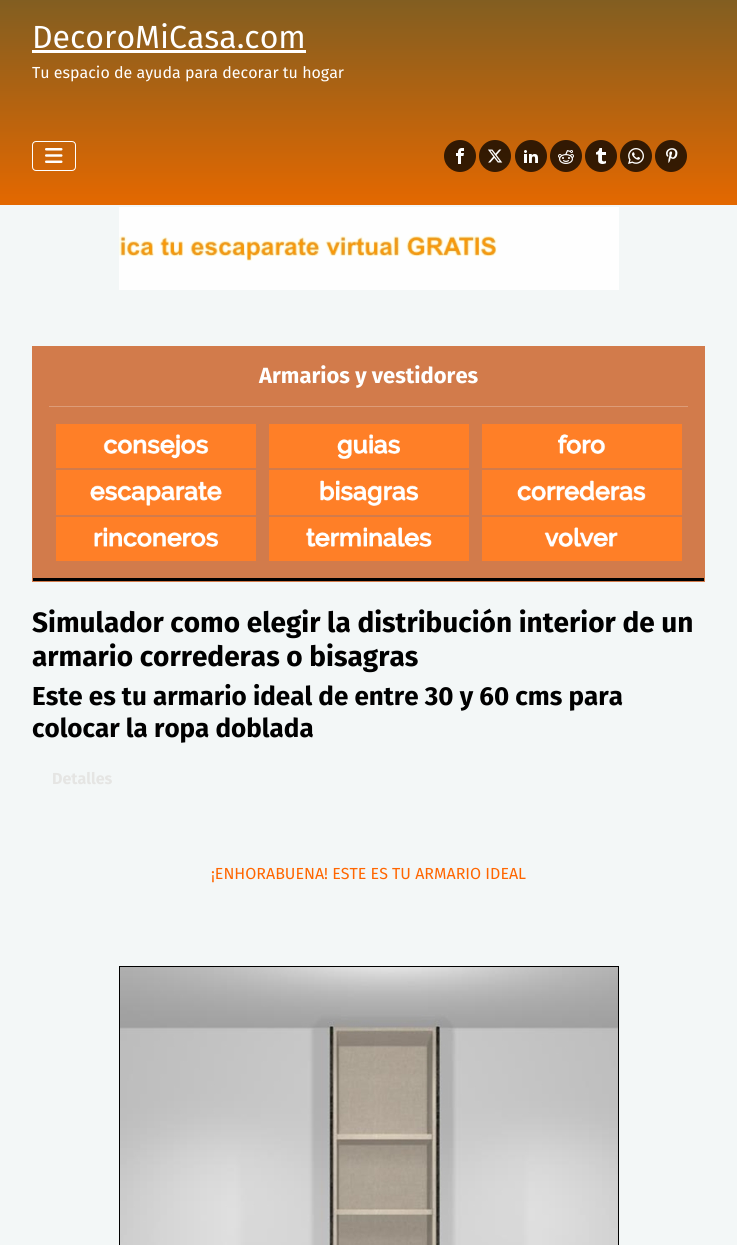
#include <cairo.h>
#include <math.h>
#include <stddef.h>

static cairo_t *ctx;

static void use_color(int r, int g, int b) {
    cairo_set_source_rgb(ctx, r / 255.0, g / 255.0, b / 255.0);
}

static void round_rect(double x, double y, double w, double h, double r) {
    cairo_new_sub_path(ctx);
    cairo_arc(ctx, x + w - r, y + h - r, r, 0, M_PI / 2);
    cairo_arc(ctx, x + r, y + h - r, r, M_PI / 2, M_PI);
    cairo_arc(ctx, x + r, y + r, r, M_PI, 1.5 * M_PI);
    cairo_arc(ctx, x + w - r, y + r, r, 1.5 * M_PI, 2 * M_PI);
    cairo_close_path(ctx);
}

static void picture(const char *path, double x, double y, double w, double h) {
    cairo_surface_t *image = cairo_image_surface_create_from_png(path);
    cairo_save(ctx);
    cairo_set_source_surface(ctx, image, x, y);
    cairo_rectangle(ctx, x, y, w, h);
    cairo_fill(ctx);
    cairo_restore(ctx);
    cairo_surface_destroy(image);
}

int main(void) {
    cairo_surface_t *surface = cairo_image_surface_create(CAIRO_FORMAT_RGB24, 737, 1245);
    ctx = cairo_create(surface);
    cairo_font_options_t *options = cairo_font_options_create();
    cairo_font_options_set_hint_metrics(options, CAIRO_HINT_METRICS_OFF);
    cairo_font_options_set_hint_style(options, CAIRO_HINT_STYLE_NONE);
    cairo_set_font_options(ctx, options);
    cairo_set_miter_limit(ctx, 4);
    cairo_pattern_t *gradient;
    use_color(243, 247, 247);
    cairo_paint(ctx);
    gradient = cairo_pattern_create_linear(369, 0, 369, 205);
    cairo_pattern_add_color_stop_rgba(gradient, 0, 0.51, 0.369, 0.129, 1);
    cairo_pattern_add_color_stop_rgba(gradient, 1, 0.894, 0.408, 0, 1);
    cairo_set_source(ctx, gradient);
    cairo_pattern_destroy(gradient);
    cairo_rectangle(ctx, 0, 0, 737, 205);
    cairo_fill(ctx);
    cairo_select_font_face(ctx, "Fira Sans", CAIRO_FONT_SLANT_NORMAL, CAIRO_FONT_WEIGHT_NORMAL);
    cairo_set_font_size(ctx, 32);
    use_color(255, 255, 255);
    cairo_move_to(ctx, 32, 48);
    cairo_show_text(ctx, "DecoroMiCasa.com");
    cairo_rectangle(ctx, 32, 50, 274, 3);
    cairo_fill(ctx);
    cairo_set_font_size(ctx, 16);
    cairo_move_to(ctx, 32, 78);
    cairo_show_text(ctx, "Tu espacio de ayuda para decorar tu hogar");
    round_rect(32.5, 141.5, 43, 29, 3.5);
    cairo_set_line_width(ctx, 1);
    cairo_stroke(ctx);
    picture("img1.png", 45, 148, 18, 15);
    cairo_set_source_rgba(ctx, 0, 0, 0, 0.75);
    cairo_arc(ctx, 460, 156, 16, 0, 2 * M_PI);
    cairo_fill(ctx);
    picture("img2.png", 456, 148, 8, 16);
    cairo_arc(ctx, 495, 156, 16, 0, 2 * M_PI);
    cairo_fill(ctx);
    picture("img3.png", 488, 149, 15, 14);
    cairo_arc(ctx, 531, 156, 16, 0, 2 * M_PI);
    cairo_fill(ctx);
    picture("img4.png", 524, 150, 14, 13);
    cairo_arc(ctx, 566, 156, 16, 0, 2 * M_PI);
    cairo_fill(ctx);
    picture("img5.png", 558, 150, 16, 14);
    cairo_arc(ctx, 601, 156, 16, 0, 2 * M_PI);
    cairo_fill(ctx);
    picture("img6.png", 596, 148, 10, 16);
    cairo_arc(ctx, 636, 156, 16, 0, 2 * M_PI);
    cairo_fill(ctx);
    picture("img7.png", 628, 148, 16, 16);
    cairo_arc(ctx, 671, 156, 16, 0, 2 * M_PI);
    cairo_fill(ctx);
    picture("img8.png", 666, 148, 12, 15);
    picture("img9.png", 119, 207, 500, 83);
    use_color(210, 123, 75);
    cairo_rectangle(ctx, 32, 346, 673, 236);
    cairo_fill(ctx);
    use_color(0, 0, 0);
    cairo_rectangle(ctx, 33, 578, 671, 3);
    cairo_fill(ctx);
    cairo_select_font_face(ctx, "Fira Sans", CAIRO_FONT_SLANT_NORMAL, CAIRO_FONT_WEIGHT_BOLD);
    cairo_set_font_size(ctx, 22);
    use_color(255, 255, 255);
    cairo_move_to(ctx, 259, 383);
    cairo_show_text(ctx, "Armarios y vestidores");
    use_color(221, 156, 120);
    cairo_rectangle(ctx, 49, 406, 639, 1);
    cairo_fill(ctx);
    picture("img10.png", 56, 424, 200, 44);
    picture("img11.png", 269, 424, 200, 44);
    picture("img12.png", 482, 424, 200, 44);
    picture("img13.png", 56, 470, 200, 45);
    picture("img14.png", 269, 470, 200, 45);
    picture("img15.png", 482, 470, 200, 45);
    picture("img16.png", 56, 517, 200, 44);
    picture("img17.png", 269, 517, 200, 44);
    picture("img18.png", 482, 517, 200, 44);
    cairo_set_font_size(ctx, 28);
    use_color(0, 0, 0);
    cairo_move_to(ctx, 32, 632);
    cairo_show_text(ctx, "Simulador como elegir la distribución interior de un");
    cairo_move_to(ctx, 32, 666);
    cairo_show_text(ctx, "armario correderas o bisagras");
    cairo_set_font_size(ctx, 26);
    cairo_move_to(ctx, 32, 705);
    cairo_show_text(ctx, "Este es tu armario ideal de entre 30 y 60 cms para");
    cairo_move_to(ctx, 32, 737);
    cairo_show_text(ctx, "colocar la ropa doblada");
    cairo_set_font_size(ctx, 16);
    use_color(229, 229, 227);
    cairo_move_to(ctx, 52, 784);
    cairo_show_text(ctx, "Detalles");
    cairo_select_font_face(ctx, "Fira Sans", CAIRO_FONT_SLANT_NORMAL, CAIRO_FONT_WEIGHT_NORMAL);
    use_color(255, 102, 0);
    cairo_move_to(ctx, 211, 879);
    cairo_show_text(ctx, "¡ENHORABUENA! ESTE ES TU ARMARIO IDEAL");
    picture("img19.png", 119, 966, 500, 279);
    cairo_surface_write_to_png(surface, "result.png");
    cairo_font_options_destroy(options);
    cairo_destroy(ctx);
    cairo_surface_destroy(surface);
    return 0;
}
